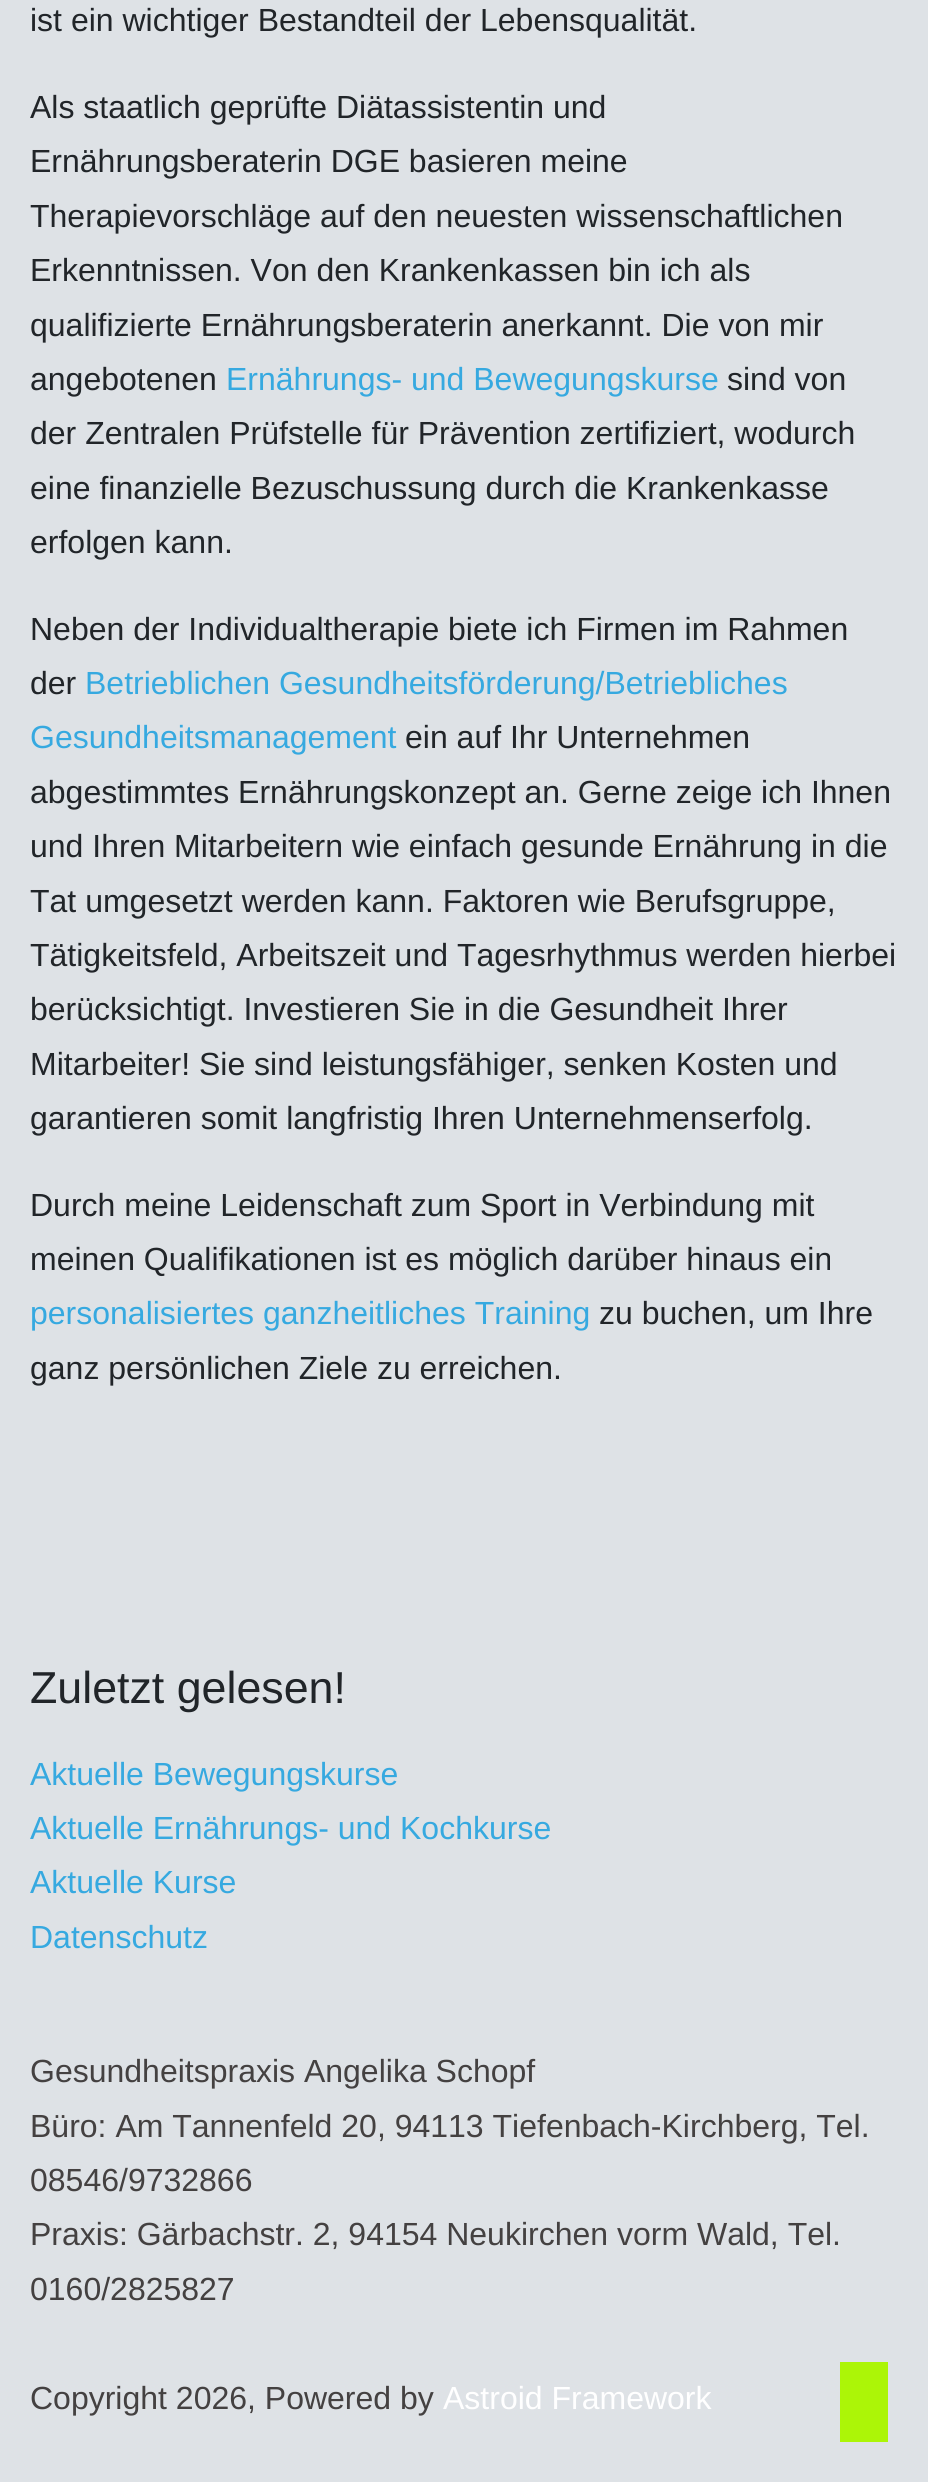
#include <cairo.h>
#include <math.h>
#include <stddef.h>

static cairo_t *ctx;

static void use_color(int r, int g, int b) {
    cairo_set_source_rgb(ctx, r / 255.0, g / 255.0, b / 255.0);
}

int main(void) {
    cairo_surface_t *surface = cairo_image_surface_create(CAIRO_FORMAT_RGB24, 928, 2482);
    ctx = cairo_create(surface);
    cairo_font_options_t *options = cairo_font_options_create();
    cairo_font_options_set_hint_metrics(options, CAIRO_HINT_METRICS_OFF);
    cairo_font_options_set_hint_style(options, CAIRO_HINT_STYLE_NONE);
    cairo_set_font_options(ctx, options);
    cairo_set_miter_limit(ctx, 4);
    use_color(222, 226, 230);
    cairo_paint(ctx);
    cairo_select_font_face(ctx, "Liberation Sans", CAIRO_FONT_SLANT_NORMAL, CAIRO_FONT_WEIGHT_NORMAL);
    cairo_set_font_size(ctx, 32);
    use_color(33, 37, 41);
    cairo_move_to(ctx, 30, 31);
    cairo_show_text(ctx, "ist ein wichtiger Bestandteil der Lebensqualität.");
    cairo_move_to(ctx, 30, 118);
    cairo_show_text(ctx, "Als staatlich geprüfte Diätassistentin und");
    cairo_move_to(ctx, 30, 172);
    cairo_show_text(ctx, "Ernährungsberaterin DGE basieren meine");
    cairo_move_to(ctx, 30, 227);
    cairo_show_text(ctx, "Therapievorschläge auf den neuesten wissenschaftlichen");
    cairo_move_to(ctx, 30, 281);
    cairo_show_text(ctx, "Erkenntnissen. Von den Krankenkassen bin ich als");
    cairo_move_to(ctx, 30, 336);
    cairo_show_text(ctx, "qualifizierte Ernährungsberaterin anerkannt. Die von mir");
    cairo_move_to(ctx, 30, 390);
    cairo_show_text(ctx, "angebotenen");
    use_color(54, 169, 224);
    cairo_move_to(ctx, 226, 390);
    cairo_show_text(ctx, "Ernährungs- und Bewegungskurse");
    use_color(33, 37, 41);
    cairo_move_to(ctx, 727, 390);
    cairo_show_text(ctx, "sind von");
    cairo_move_to(ctx, 30, 444);
    cairo_show_text(ctx, "der Zentralen Prüfstelle für Prävention zertifiziert, wodurch");
    cairo_move_to(ctx, 30, 499);
    cairo_show_text(ctx, "eine finanzielle Bezuschussung durch die Krankenkasse");
    cairo_move_to(ctx, 30, 553);
    cairo_show_text(ctx, "erfolgen kann.");
    cairo_move_to(ctx, 30, 640);
    cairo_show_text(ctx, "Neben der Individualtherapie biete ich Firmen im Rahmen");
    cairo_move_to(ctx, 30, 694);
    cairo_show_text(ctx, "der");
    use_color(54, 169, 224);
    cairo_move_to(ctx, 85, 694);
    cairo_show_text(ctx, "Betrieblichen Gesundheitsförderung/Betriebliches");
    cairo_move_to(ctx, 30, 748);
    cairo_show_text(ctx, "Gesundheitsmanagement");
    use_color(33, 37, 41);
    cairo_move_to(ctx, 405, 748);
    cairo_show_text(ctx, "ein auf Ihr Unternehmen");
    cairo_move_to(ctx, 30, 803);
    cairo_show_text(ctx, "abgestimmtes Ernährungskonzept an. Gerne zeige ich Ihnen");
    cairo_move_to(ctx, 30, 857);
    cairo_show_text(ctx, "und Ihren Mitarbeitern wie einfach gesunde Ernährung in die");
    cairo_move_to(ctx, 30, 912);
    cairo_show_text(ctx, "Tat umgesetzt werden kann. Faktoren wie Berufsgruppe,");
    cairo_move_to(ctx, 30, 966);
    cairo_show_text(ctx, "Tätigkeitsfeld, Arbeitszeit und Tagesrhythmus werden hierbei");
    cairo_move_to(ctx, 30, 1020);
    cairo_show_text(ctx, "berücksichtigt. Investieren Sie in die Gesundheit Ihrer");
    cairo_move_to(ctx, 30, 1075);
    cairo_show_text(ctx, "Mitarbeiter! Sie sind leistungsfähiger, senken Kosten und");
    cairo_move_to(ctx, 30, 1129);
    cairo_show_text(ctx, "garantieren somit langfristig Ihren Unternehmenserfolg.");
    cairo_move_to(ctx, 30, 1216);
    cairo_show_text(ctx, "Durch meine Leidenschaft zum Sport in Verbindung mit");
    cairo_move_to(ctx, 30, 1270);
    cairo_show_text(ctx, "meinen Qualifikationen ist es möglich darüber hinaus ein");
    use_color(54, 169, 224);
    cairo_move_to(ctx, 30, 1324);
    cairo_show_text(ctx, "personalisiertes ganzheitliches Training");
    use_color(33, 37, 41);
    cairo_move_to(ctx, 599, 1324);
    cairo_show_text(ctx, "zu buchen, um Ihre");
    cairo_move_to(ctx, 30, 1379);
    cairo_show_text(ctx, "ganz persönlichen Ziele zu erreichen.");
    cairo_set_font_size(ctx, 44.75);
    cairo_move_to(ctx, 30, 1703);
    cairo_show_text(ctx, "Zuletzt gelesen!");
    cairo_set_font_size(ctx, 32);
    use_color(54, 169, 224);
    cairo_move_to(ctx, 30, 1785);
    cairo_show_text(ctx, "Aktuelle Bewegungskurse");
    cairo_move_to(ctx, 30, 1839);
    cairo_show_text(ctx, "Aktuelle Ernährungs- und Kochkurse");
    cairo_move_to(ctx, 30, 1893);
    cairo_show_text(ctx, "Aktuelle Kurse");
    cairo_move_to(ctx, 30, 1948);
    cairo_show_text(ctx, "Datenschutz");
    use_color(68, 65, 65);
    cairo_move_to(ctx, 30, 2082);
    cairo_show_text(ctx, "Gesundheitspraxis Angelika Schopf");
    cairo_move_to(ctx, 30, 2137);
    cairo_show_text(ctx, "Büro: Am Tannenfeld 20, 94113 Tiefenbach-Kirchberg, Tel.");
    cairo_move_to(ctx, 30, 2191);
    cairo_show_text(ctx, "08546/9732866");
    cairo_move_to(ctx, 30, 2245);
    cairo_show_text(ctx, "Praxis: Gärbachstr. 2, 94154 Neukirchen vorm Wald, Tel.");
    cairo_move_to(ctx, 30, 2300);
    cairo_show_text(ctx, "0160/2825827");
    cairo_move_to(ctx, 30, 2409);
    cairo_show_text(ctx, "Copyright 2026, Powered by");
    use_color(255, 255, 255);
    cairo_move_to(ctx, 443, 2409);
    cairo_show_text(ctx, "Astroid Framework");
    use_color(172, 245, 7);
    cairo_rectangle(ctx, 840, 2362, 48, 80);
    cairo_fill(ctx);
    cairo_surface_write_to_png(surface, "result.png");
    cairo_font_options_destroy(options);
    cairo_destroy(ctx);
    cairo_surface_destroy(surface);
    return 0;
}
